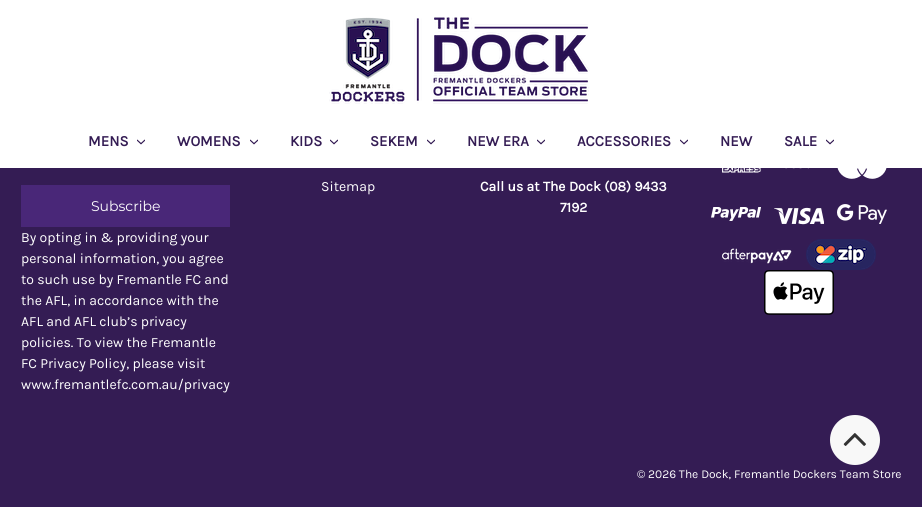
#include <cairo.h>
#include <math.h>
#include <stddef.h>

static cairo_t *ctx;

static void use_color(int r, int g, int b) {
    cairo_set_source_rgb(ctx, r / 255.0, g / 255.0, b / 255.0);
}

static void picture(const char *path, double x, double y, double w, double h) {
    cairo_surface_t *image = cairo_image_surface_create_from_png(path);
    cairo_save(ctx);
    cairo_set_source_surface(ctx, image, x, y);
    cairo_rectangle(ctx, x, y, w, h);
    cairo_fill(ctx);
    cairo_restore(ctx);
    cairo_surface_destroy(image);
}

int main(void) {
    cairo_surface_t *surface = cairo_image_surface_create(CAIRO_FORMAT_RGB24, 922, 507);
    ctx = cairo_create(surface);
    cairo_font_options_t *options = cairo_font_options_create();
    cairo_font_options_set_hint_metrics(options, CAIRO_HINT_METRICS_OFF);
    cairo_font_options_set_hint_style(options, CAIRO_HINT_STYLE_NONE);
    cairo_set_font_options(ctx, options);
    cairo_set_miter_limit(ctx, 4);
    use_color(52, 28, 84);
    cairo_paint(ctx);
    use_color(255, 255, 255);
    cairo_rectangle(ctx, 0, 0, 922, 168);
    cairo_fill(ctx);
    picture("img1.png", 329, 17, 261, 87);
    cairo_select_font_face(ctx, "Karla", CAIRO_FONT_SLANT_NORMAL, CAIRO_FONT_WEIGHT_BOLD);
    cairo_set_font_size(ctx, 15);
    use_color(52, 28, 84);
    cairo_move_to(ctx, 88, 146);
    cairo_show_text(ctx, "MENS");
    picture("img2.png", 137, 139, 8, 6);
    cairo_move_to(ctx, 177, 146);
    cairo_show_text(ctx, "WOMENS");
    picture("img2.png", 250, 139, 8, 6);
    cairo_move_to(ctx, 290, 146);
    cairo_show_text(ctx, "KIDS");
    picture("img2.png", 330, 139, 8, 6);
    cairo_move_to(ctx, 370, 146);
    cairo_show_text(ctx, "SEKEM");
    picture("img2.png", 427, 139, 8, 6);
    cairo_move_to(ctx, 467, 146);
    cairo_show_text(ctx, "NEW ERA");
    picture("img2.png", 537, 139, 8, 6);
    cairo_move_to(ctx, 577, 146);
    cairo_show_text(ctx, "ACCESSORIES");
    picture("img2.png", 680, 139, 8, 6);
    cairo_move_to(ctx, 720, 146);
    cairo_show_text(ctx, "NEW");
    cairo_move_to(ctx, 784, 146);
    cairo_show_text(ctx, "SALE");
    picture("img2.png", 826, 139, 8, 6);
    cairo_select_font_face(ctx, "Karla", CAIRO_FONT_SLANT_NORMAL, CAIRO_FONT_WEIGHT_NORMAL);
    cairo_set_font_size(ctx, 14);
    use_color(255, 255, 255);
    cairo_move_to(ctx, 321, 191);
    cairo_show_text(ctx, "Sitemap");
    cairo_select_font_face(ctx, "Karla", CAIRO_FONT_SLANT_NORMAL, CAIRO_FONT_WEIGHT_BOLD);
    cairo_move_to(ctx, 480, 191);
    cairo_show_text(ctx, "Call us at The Dock (08) 9433");
    cairo_move_to(ctx, 560, 212);
    cairo_show_text(ctx, "7192");
    picture("img3.png", 722, 168, 39, 5);
    picture("img4.png", 785, 168, 24, 1);
    picture("img5.png", 837, 168, 50, 11);
    picture("img6.png", 711, 207, 50, 14);
    picture("img7.png", 774, 207, 50, 18);
    picture("img8.png", 837, 204, 50, 20);
    picture("img9.png", 722, 248, 70, 16);
    picture("img10.png", 806, 239, 70, 31);
    picture("img11.png", 764, 270, 70, 45);
    use_color(73, 39, 120);
    cairo_rectangle(ctx, 21, 185, 209, 42);
    cairo_fill(ctx);
    cairo_select_font_face(ctx, "Montserrat", CAIRO_FONT_SLANT_NORMAL, CAIRO_FONT_WEIGHT_NORMAL);
    use_color(255, 255, 255);
    cairo_move_to(ctx, 91, 211);
    cairo_show_text(ctx, "Subscribe");
    cairo_select_font_face(ctx, "Karla", CAIRO_FONT_SLANT_NORMAL, CAIRO_FONT_WEIGHT_NORMAL);
    cairo_move_to(ctx, 21, 242);
    cairo_show_text(ctx, "By opting in & providing your");
    cairo_move_to(ctx, 21, 263);
    cairo_show_text(ctx, "personal information, you agree");
    cairo_move_to(ctx, 21, 284);
    cairo_show_text(ctx, "to such use by Fremantle FC and");
    cairo_move_to(ctx, 21, 305);
    cairo_show_text(ctx, "the AFL, in accordance with the");
    cairo_move_to(ctx, 21, 326);
    cairo_show_text(ctx, "AFL and AFL club’s privacy");
    cairo_move_to(ctx, 21, 347);
    cairo_show_text(ctx, "policies. To view the Fremantle");
    cairo_move_to(ctx, 21, 368);
    cairo_show_text(ctx, "FC Privacy Policy, please visit");
    cairo_move_to(ctx, 21, 389);
    cairo_show_text(ctx, "www.fremantlefc.com.au/privacy");
    use_color(248, 248, 248);
    cairo_new_path(ctx);
    cairo_arc(ctx, 855, 440, 25, 0, 2 * M_PI);
    cairo_fill(ctx);
    picture("img12.png", 843, 433, 23, 13);
    cairo_set_font_size(ctx, 12);
    use_color(255, 255, 255);
    cairo_move_to(ctx, 637, 478);
    cairo_show_text(ctx, "© 2026 The Dock, Fremantle Dockers Team Store");
    cairo_surface_write_to_png(surface, "result.png");
    cairo_font_options_destroy(options);
    cairo_destroy(ctx);
    cairo_surface_destroy(surface);
    return 0;
}
